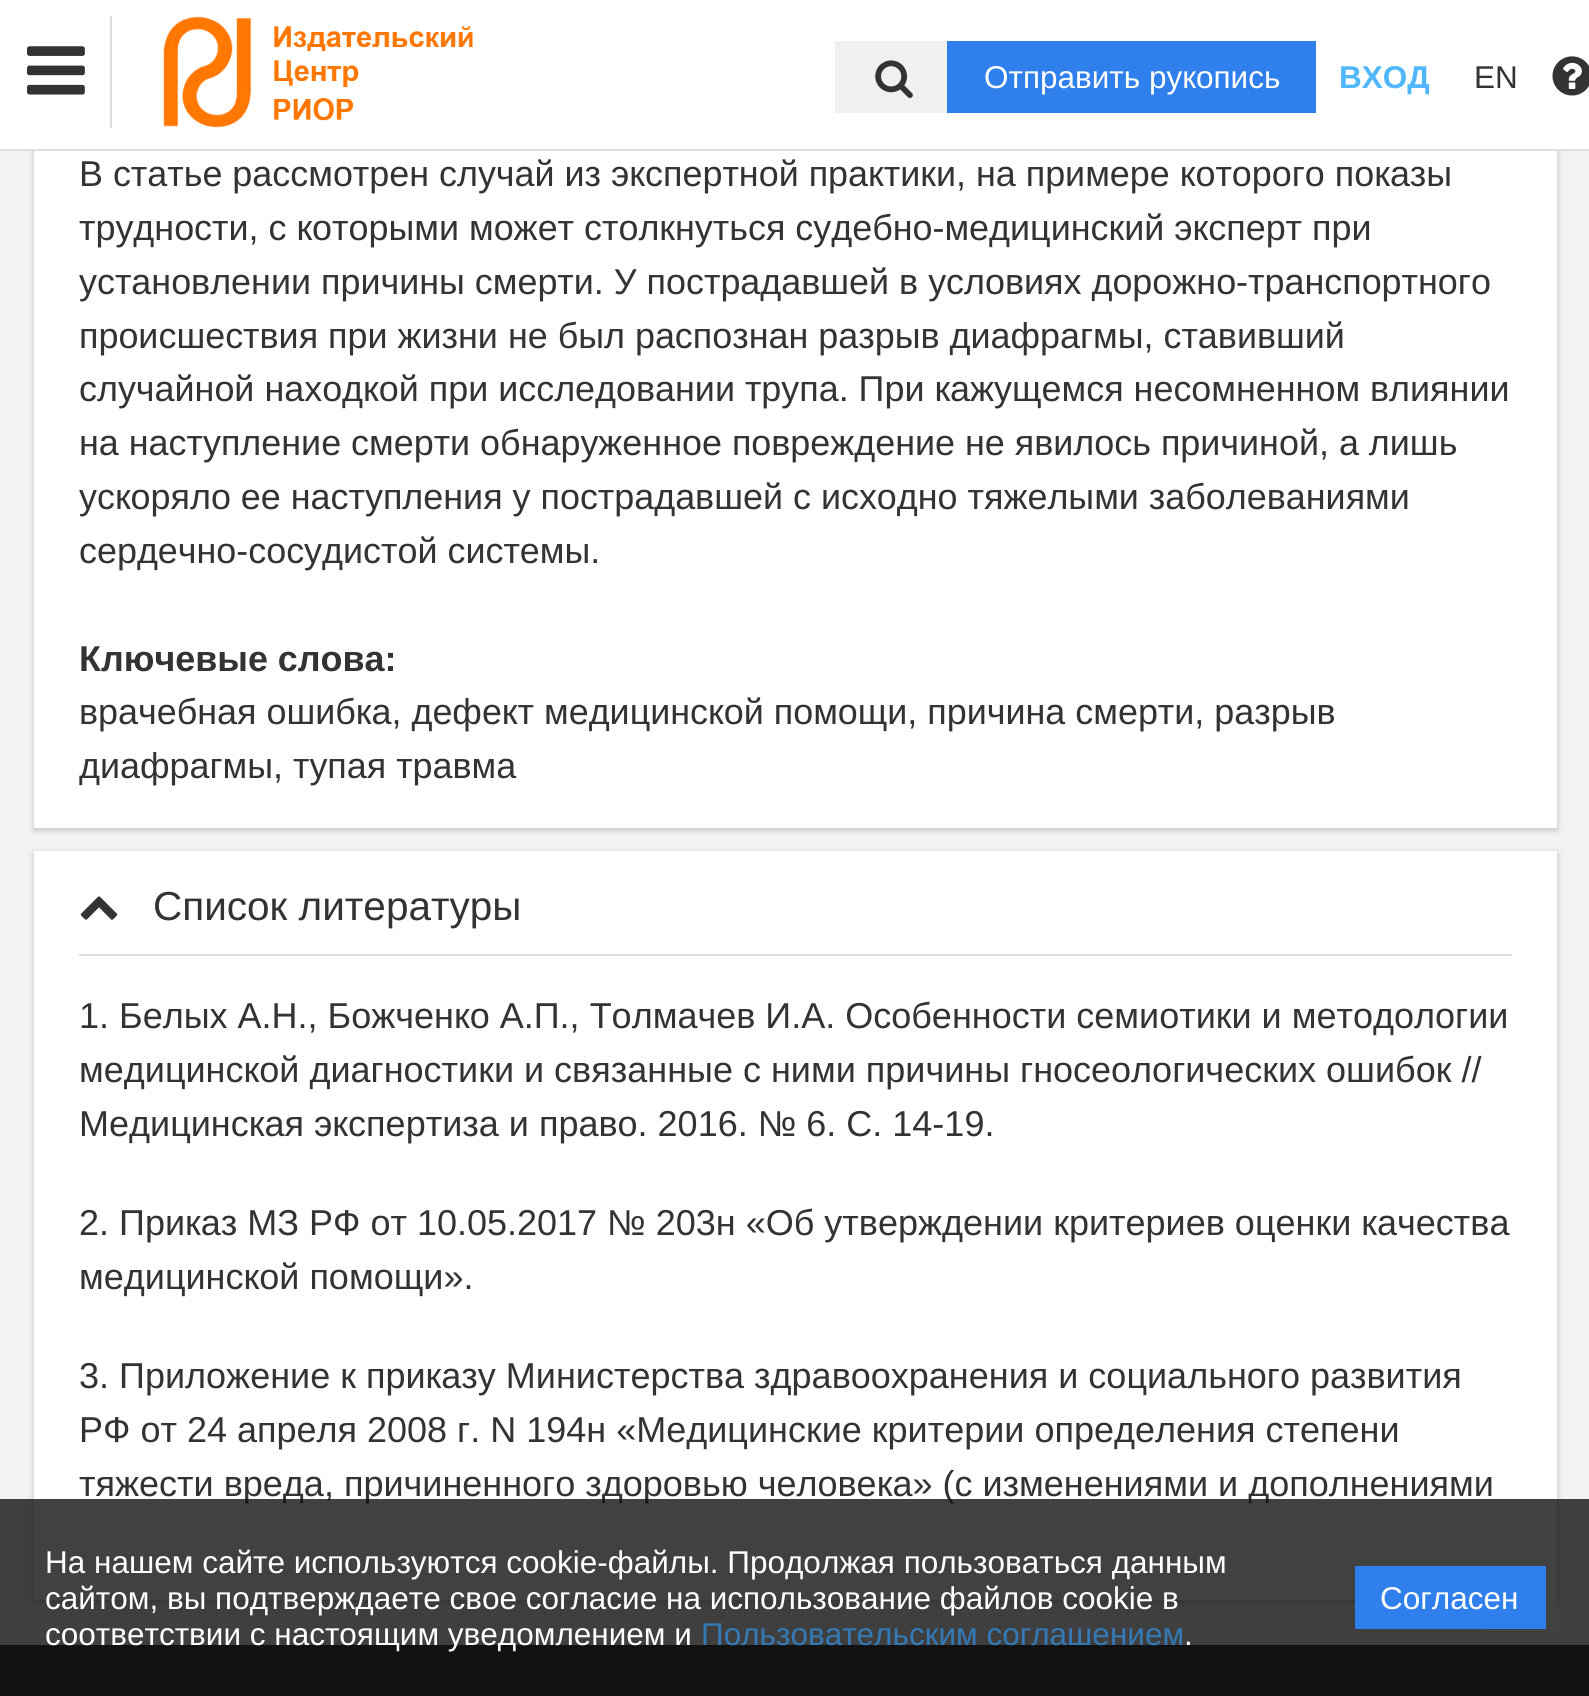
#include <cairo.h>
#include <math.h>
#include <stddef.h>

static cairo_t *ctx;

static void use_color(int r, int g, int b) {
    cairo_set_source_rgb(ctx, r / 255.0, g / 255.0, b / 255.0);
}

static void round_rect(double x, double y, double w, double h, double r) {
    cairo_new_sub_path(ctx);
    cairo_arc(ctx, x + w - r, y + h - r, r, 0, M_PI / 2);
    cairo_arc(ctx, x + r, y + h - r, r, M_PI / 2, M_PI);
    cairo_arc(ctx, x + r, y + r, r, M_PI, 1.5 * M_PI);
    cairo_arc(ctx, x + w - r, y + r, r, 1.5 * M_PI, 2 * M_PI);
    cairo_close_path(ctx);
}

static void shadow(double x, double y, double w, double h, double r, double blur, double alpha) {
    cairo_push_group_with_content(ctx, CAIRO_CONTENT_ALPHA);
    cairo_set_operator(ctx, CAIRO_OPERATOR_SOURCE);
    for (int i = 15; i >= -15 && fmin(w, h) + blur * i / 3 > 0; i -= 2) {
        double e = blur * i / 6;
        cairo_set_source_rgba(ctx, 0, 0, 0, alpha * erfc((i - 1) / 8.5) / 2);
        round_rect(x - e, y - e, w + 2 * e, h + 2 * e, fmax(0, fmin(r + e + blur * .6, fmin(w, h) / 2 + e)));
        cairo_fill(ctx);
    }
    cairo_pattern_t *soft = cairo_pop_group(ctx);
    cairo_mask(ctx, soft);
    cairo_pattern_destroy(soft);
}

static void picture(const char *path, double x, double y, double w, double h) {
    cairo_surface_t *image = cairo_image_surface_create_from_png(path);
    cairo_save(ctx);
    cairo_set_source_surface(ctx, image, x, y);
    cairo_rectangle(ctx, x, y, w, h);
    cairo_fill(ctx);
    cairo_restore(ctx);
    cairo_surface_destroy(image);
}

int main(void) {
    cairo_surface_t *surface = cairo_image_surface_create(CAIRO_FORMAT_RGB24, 1589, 1696);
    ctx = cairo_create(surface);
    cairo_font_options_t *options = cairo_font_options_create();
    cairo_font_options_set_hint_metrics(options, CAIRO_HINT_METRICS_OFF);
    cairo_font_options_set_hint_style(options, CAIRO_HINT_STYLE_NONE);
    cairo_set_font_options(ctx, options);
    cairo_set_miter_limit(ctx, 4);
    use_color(244, 243, 243);
    cairo_paint(ctx);
    use_color(191, 191, 191);
    shadow(34, -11, 1523, 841, 0, 3.5, 1);
    use_color(255, 255, 255);
    cairo_rectangle(ctx, 0, 0, 1589, 149);
    cairo_fill(ctx);
    use_color(223, 223, 223);
    cairo_rectangle(ctx, 0, 149, 1589, 2);
    cairo_fill(ctx);
    cairo_rectangle(ctx, 110, 16, 2, 112);
    cairo_fill(ctx);
    picture("img1.png", 27, 46, 58, 49);
    picture("img2.png", 163, 16, 310, 113);
    use_color(240, 240, 240);
    cairo_rectangle(ctx, 835, 41, 112, 72);
    cairo_fill(ctx);
    picture("img3.png", 875, 60, 38, 38);
    use_color(47, 128, 237);
    cairo_rectangle(ctx, 947, 41, 369, 72);
    cairo_fill(ctx);
    cairo_select_font_face(ctx, "Liberation Sans", CAIRO_FONT_SLANT_NORMAL, CAIRO_FONT_WEIGHT_NORMAL);
    cairo_set_font_size(ctx, 31.5);
    use_color(255, 255, 255);
    cairo_move_to(ctx, 984, 88);
    cairo_show_text(ctx, "Отправить рукопись");
    cairo_select_font_face(ctx, "Liberation Sans", CAIRO_FONT_SLANT_NORMAL, CAIRO_FONT_WEIGHT_BOLD);
    use_color(80, 183, 255);
    cairo_move_to(ctx, 1339, 88);
    cairo_show_text(ctx, "ВХОД");
    cairo_select_font_face(ctx, "Liberation Sans", CAIRO_FONT_SLANT_NORMAL, CAIRO_FONT_WEIGHT_NORMAL);
    use_color(51, 51, 51);
    cairo_move_to(ctx, 1474, 88);
    cairo_show_text(ctx, "EN");
    picture("img4.png", 1552, 56, 37, 40);
    use_color(255, 255, 255);
    cairo_rectangle(ctx, 34, 151, 1523, 677);
    cairo_fill(ctx);
    cairo_set_font_size(ctx, 35.9);
    use_color(51, 51, 51);
    cairo_move_to(ctx, 79, 186);
    cairo_show_text(ctx, "В статье рассмотрен случай из экспертной практики, на примере которого показы");
    cairo_move_to(ctx, 79, 240);
    cairo_show_text(ctx, "трудности, с которыми может столкнуться судебно-медицинский эксперт при");
    cairo_move_to(ctx, 79, 294);
    cairo_show_text(ctx, "установлении причины смерти. У пострадавшей в условиях дорожно-транспортного");
    cairo_move_to(ctx, 79, 348);
    cairo_show_text(ctx, "происшествия при жизни не был распознан разрыв диафрагмы, ставивший");
    cairo_move_to(ctx, 79, 401);
    cairo_show_text(ctx, "случайной находкой при исследовании трупа. При кажущемся несомненном влиянии");
    cairo_move_to(ctx, 79, 455);
    cairo_show_text(ctx, "на наступление смерти обнаруженное повреждение не явилось причиной, а лишь");
    cairo_move_to(ctx, 79, 509);
    cairo_show_text(ctx, "ускоряло ее наступления у пострадавшей с исходно тяжелыми заболеваниями");
    cairo_move_to(ctx, 79, 563);
    cairo_show_text(ctx, "сердечно-сосудистой системы.");
    cairo_select_font_face(ctx, "Liberation Sans", CAIRO_FONT_SLANT_NORMAL, CAIRO_FONT_WEIGHT_BOLD);
    cairo_move_to(ctx, 79, 671);
    cairo_show_text(ctx, "Ключевые слова:");
    cairo_select_font_face(ctx, "Liberation Sans", CAIRO_FONT_SLANT_NORMAL, CAIRO_FONT_WEIGHT_NORMAL);
    cairo_move_to(ctx, 79, 724);
    cairo_show_text(ctx, "врачебная ошибка, дефект медицинской помощи, причина смерти, разрыв");
    cairo_move_to(ctx, 79, 778);
    cairo_show_text(ctx, "диафрагмы, тупая травма");
    use_color(191, 191, 191);
    shadow(34, 853, 1523, 749, 0, 3.5, 1);
    use_color(255, 255, 255);
    cairo_rectangle(ctx, 34, 851, 1523, 749);
    cairo_fill(ctx);
    picture("img5.png", 80, 896, 38, 24);
    cairo_set_font_size(ctx, 40.5);
    use_color(51, 51, 51);
    cairo_move_to(ctx, 153, 920);
    cairo_show_text(ctx, "Список литературы");
    use_color(221, 221, 221);
    cairo_rectangle(ctx, 79, 954, 1433, 2);
    cairo_fill(ctx);
    cairo_set_font_size(ctx, 36);
    use_color(51, 51, 51);
    cairo_move_to(ctx, 79, 1028);
    cairo_show_text(ctx, "1. Белых А.Н., Божченко А.П., Толмачев И.А. Особенности семиотики и методологии");
    cairo_move_to(ctx, 79, 1082);
    cairo_show_text(ctx, "медицинской диагностики и связанные с ними причины гносеологических ошибок //");
    cairo_move_to(ctx, 79, 1136);
    cairo_show_text(ctx, "Медицинская экспертиза и право. 2016. № 6. С. 14-19.");
    cairo_move_to(ctx, 79, 1235);
    cairo_show_text(ctx, "2. Приказ МЗ РФ от 10.05.2017 № 203н «Об утверждении критериев оценки качества");
    cairo_move_to(ctx, 79, 1289);
    cairo_show_text(ctx, "медицинской помощи».");
    cairo_move_to(ctx, 79, 1388);
    cairo_show_text(ctx, "3. Приложение к приказу Министерства здравоохранения и социального развития");
    cairo_move_to(ctx, 79, 1442);
    cairo_show_text(ctx, "РФ от 24 апреля 2008 г. N 194н «Медицинские критерии определения степени");
    cairo_move_to(ctx, 79, 1496);
    cairo_show_text(ctx, "тяжести вреда, причиненного здоровью человека» (с изменениями и дополнениями");
    use_color(255, 255, 255);
    round_rect(1483, 1555, 74, 83, 9);
    cairo_fill(ctx);
    cairo_set_source_rgba(ctx, 0.071, 0.071, 0.071, 0.8);
    cairo_rectangle(ctx, 0, 1499, 1589, 146);
    cairo_fill(ctx);
    cairo_set_font_size(ctx, 31.5);
    use_color(255, 255, 255);
    cairo_move_to(ctx, 45, 1573);
    cairo_show_text(ctx, "На нашем сайте используются cookie-файлы. Продолжая пользоваться данным");
    cairo_move_to(ctx, 45, 1609);
    cairo_show_text(ctx, "сайтом, вы подтверждаете свое согласие на использование файлов cookie в");
    use_color(17, 17, 17);
    cairo_rectangle(ctx, 0, 1645, 1589, 51);
    cairo_fill(ctx);
    use_color(255, 255, 255);
    cairo_move_to(ctx, 45, 1645);
    cairo_show_text(ctx, "соответствии с настоящим уведомлением и");
    use_color(51, 122, 183);
    cairo_move_to(ctx, 701, 1645);
    cairo_show_text(ctx, "Пользовательским соглашением");
    use_color(255, 255, 255);
    cairo_move_to(ctx, 1184, 1645);
    cairo_show_text(ctx, ".");
    use_color(47, 128, 237);
    cairo_rectangle(ctx, 1355, 1566, 191, 63);
    cairo_fill(ctx);
    use_color(255, 255, 255);
    cairo_move_to(ctx, 1380, 1609);
    cairo_show_text(ctx, "Согласен");
    cairo_surface_write_to_png(surface, "result.png");
    cairo_font_options_destroy(options);
    cairo_destroy(ctx);
    cairo_surface_destroy(surface);
    return 0;
}
